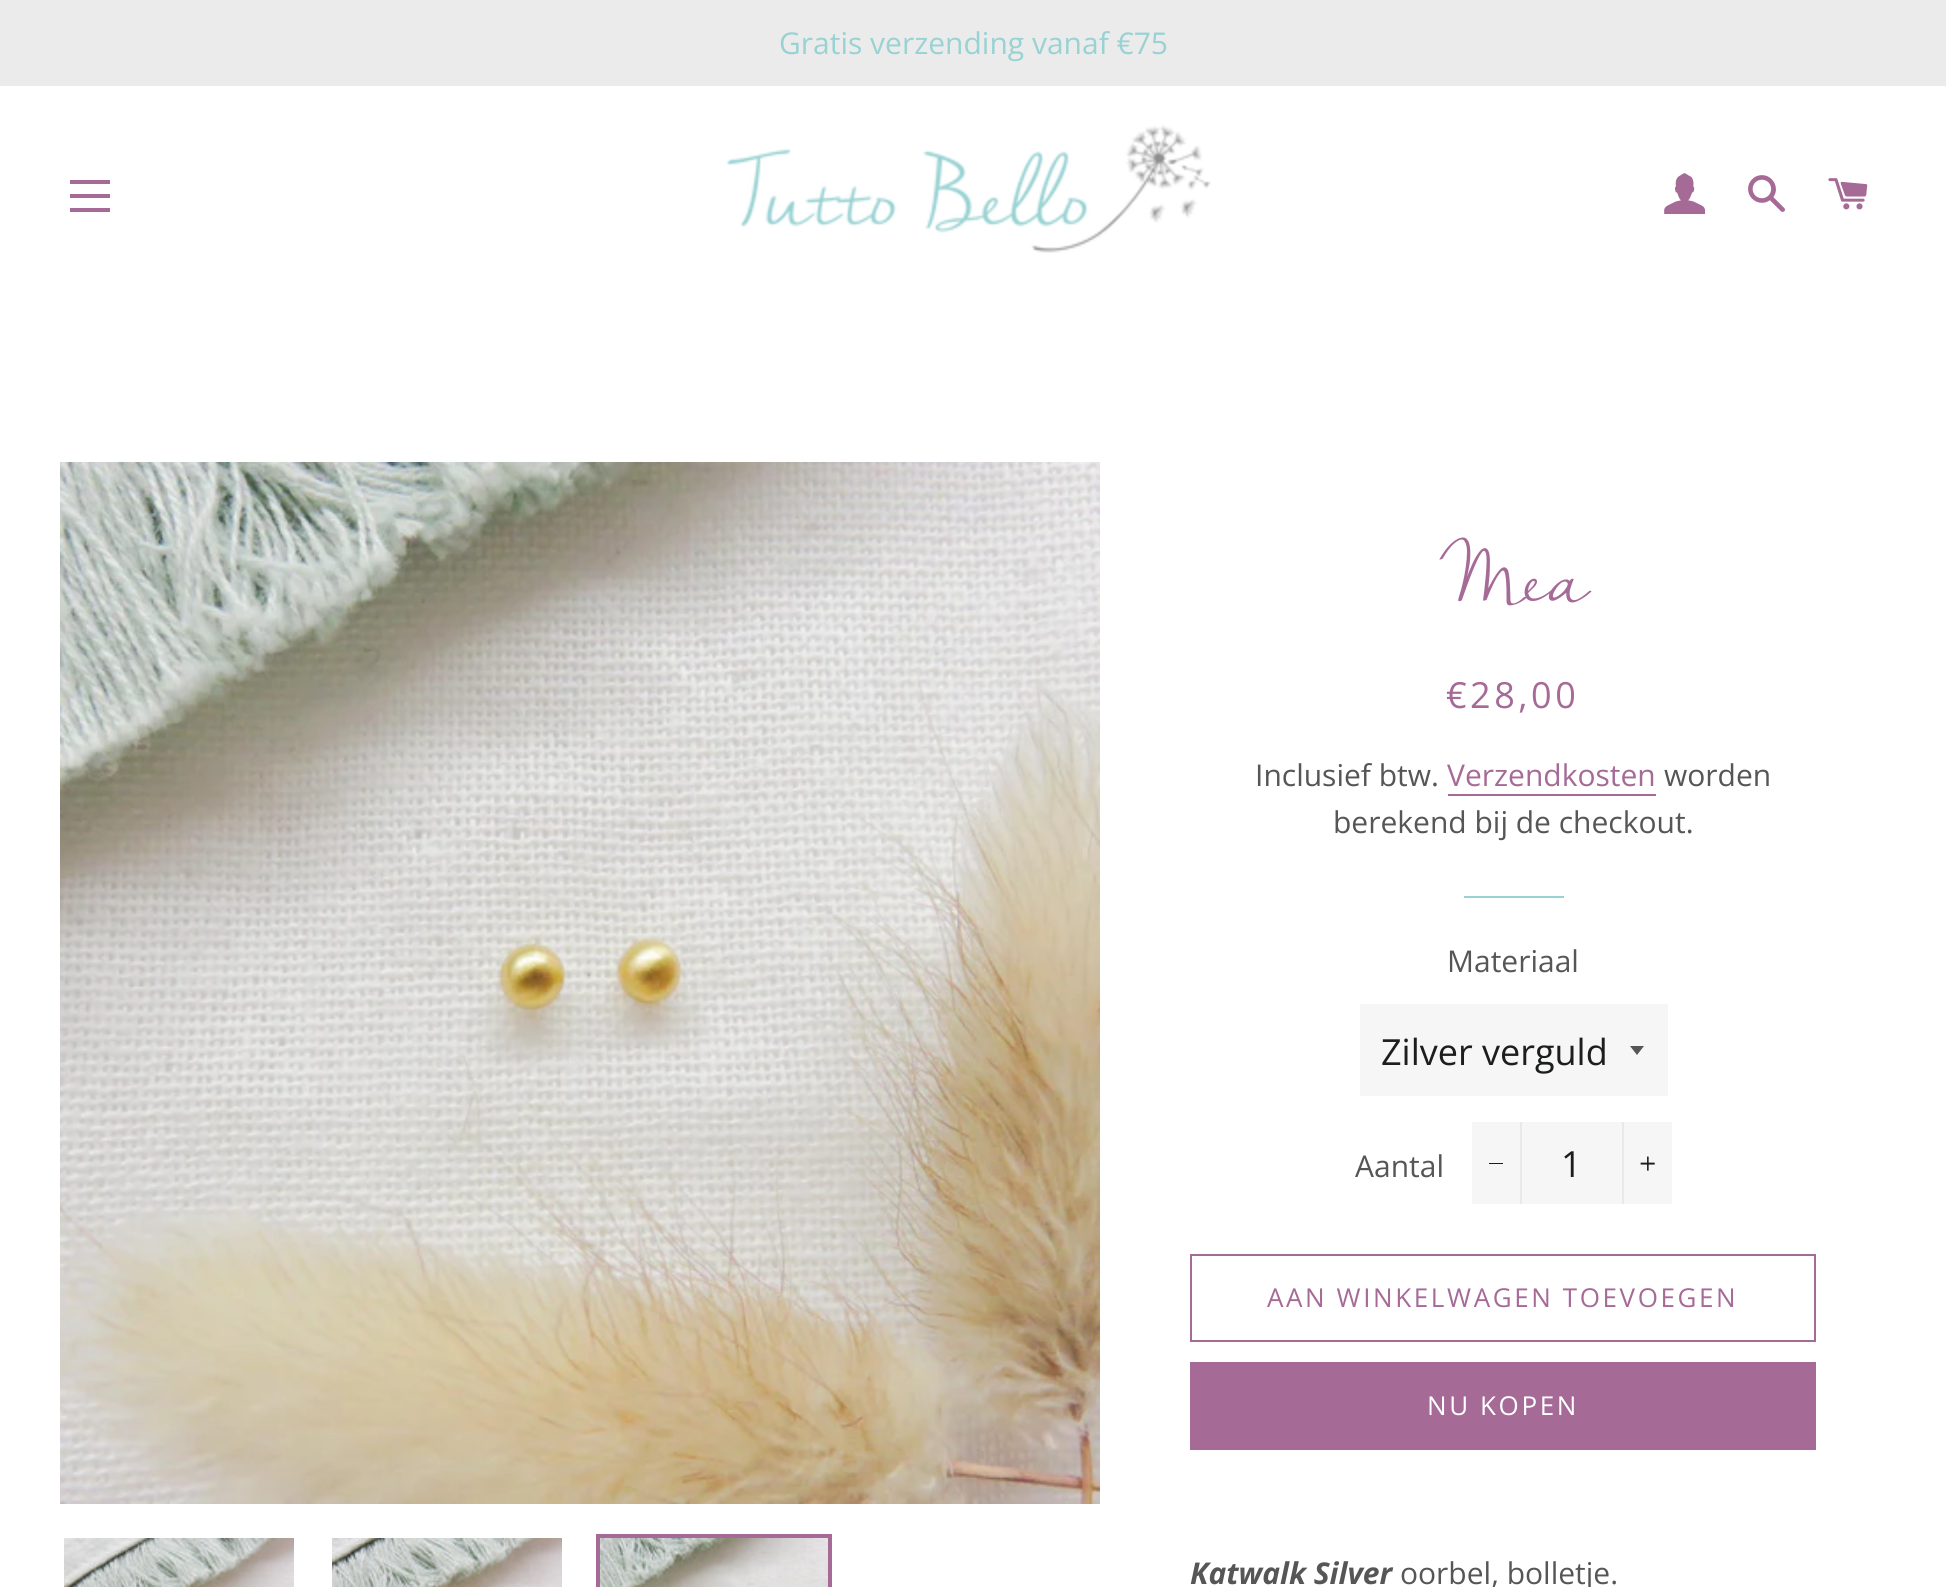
#include <cairo.h>
#include <math.h>
#include <stddef.h>

static cairo_t *ctx;

static void use_color(int r, int g, int b) {
    cairo_set_source_rgb(ctx, r / 255.0, g / 255.0, b / 255.0);
}

static void spaced_text(double x, double y, const char *s, double letter, double word) {
    cairo_move_to(ctx, x, y);
    while (*s) {
        char ch[5] = {0};
        int n = 0;
        do ch[n++] = *s++; while ((*s & 0xC0) == 0x80);
        cairo_show_text(ctx, ch);
        cairo_rel_move_to(ctx, letter + word * (*ch == ' '), 0);
    }
}

static void picture(const char *path, double x, double y, double w, double h) {
    cairo_surface_t *image = cairo_image_surface_create_from_png(path);
    cairo_save(ctx);
    cairo_set_source_surface(ctx, image, x, y);
    cairo_rectangle(ctx, x, y, w, h);
    cairo_fill(ctx);
    cairo_restore(ctx);
    cairo_surface_destroy(image);
}

int main(void) {
    cairo_surface_t *surface = cairo_image_surface_create(CAIRO_FORMAT_RGB24, 1946, 1587);
    ctx = cairo_create(surface);
    cairo_font_options_t *options = cairo_font_options_create();
    cairo_font_options_set_hint_metrics(options, CAIRO_HINT_METRICS_OFF);
    cairo_font_options_set_hint_style(options, CAIRO_HINT_STYLE_NONE);
    cairo_set_font_options(ctx, options);
    cairo_set_miter_limit(ctx, 4);
    use_color(255, 255, 255);
    cairo_paint(ctx);
    use_color(235, 235, 235);
    cairo_rectangle(ctx, 0, 0, 1946, 86);
    cairo_fill(ctx);
    cairo_select_font_face(ctx, "Open Sans", CAIRO_FONT_SLANT_NORMAL, CAIRO_FONT_WEIGHT_NORMAL);
    cairo_set_font_size(ctx, 30);
    use_color(152, 210, 211);
    cairo_move_to(ctx, 779, 54);
    cairo_show_text(ctx, "Gratis verzending vanaf €75");
    use_color(166, 106, 151);
    cairo_rectangle(ctx, 70, 180, 40, 4);
    cairo_fill(ctx);
    cairo_rectangle(ctx, 70, 194, 40, 4);
    cairo_fill(ctx);
    cairo_rectangle(ctx, 70, 208, 40, 4);
    cairo_fill(ctx);
    picture("img1.png", 726, 125, 485, 128);
    picture("img2.png", 1664, 173, 42, 41);
    picture("img3.png", 1748, 175, 37, 37);
    picture("img4.png", 1828, 178, 40, 32);
    picture("img5.png", 60, 462, 1040, 1042);
    picture("img6.png", 64, 1538, 230, 49);
    picture("img7.png", 332, 1538, 230, 49);
    cairo_rectangle(ctx, 598, 1536, 232, 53);
    cairo_set_line_width(ctx, 4);
    cairo_stroke(ctx);
    picture("img8.png", 600, 1538, 228, 49);
    cairo_select_font_face(ctx, "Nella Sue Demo", CAIRO_FONT_SLANT_NORMAL, CAIRO_FONT_WEIGHT_NORMAL);
    cairo_set_font_size(ctx, 72);
    cairo_move_to(ctx, 1440, 601);
    cairo_show_text(ctx, "Mea");
    cairo_select_font_face(ctx, "Open Sans", CAIRO_FONT_SLANT_NORMAL, CAIRO_FONT_WEIGHT_NORMAL);
    cairo_set_font_size(ctx, 36);
    spaced_text(1446, 708, "€28,00", 3.5, 0);
    cairo_set_font_size(ctx, 30);
    use_color(86, 86, 86);
    cairo_move_to(ctx, 1255, 786);
    cairo_show_text(ctx, "Inclusief btw.");
    use_color(166, 106, 151);
    cairo_move_to(ctx, 1447, 786);
    cairo_show_text(ctx, "Verzendkosten");
    cairo_rectangle(ctx, 1448, 794, 208, 2);
    cairo_fill(ctx);
    use_color(86, 86, 86);
    cairo_move_to(ctx, 1664, 786);
    cairo_show_text(ctx, "worden");
    cairo_move_to(ctx, 1333, 833);
    cairo_show_text(ctx, "berekend bij de checkout.");
    use_color(152, 210, 211);
    cairo_rectangle(ctx, 1464, 896, 100, 2);
    cairo_fill(ctx);
    use_color(86, 86, 86);
    cairo_move_to(ctx, 1447, 972);
    cairo_show_text(ctx, "Materiaal");
    use_color(246, 246, 246);
    cairo_rectangle(ctx, 1360, 1004, 308, 92);
    cairo_fill(ctx);
    use_color(86, 86, 86);
    cairo_new_path(ctx);
    cairo_move_to(ctx, 1630, 1046);
    cairo_line_to(ctx, 1637, 1055);
    cairo_line_to(ctx, 1644, 1046);
    cairo_close_path(ctx);
    cairo_fill(ctx);
    cairo_set_font_size(ctx, 36);
    use_color(28, 29, 29);
    cairo_move_to(ctx, 1381, 1065);
    cairo_show_text(ctx, "Zilver verguld");
    cairo_set_font_size(ctx, 30);
    use_color(86, 86, 86);
    cairo_move_to(ctx, 1355, 1177);
    cairo_show_text(ctx, "Aantal");
    use_color(246, 246, 246);
    cairo_rectangle(ctx, 1472, 1122, 200, 82);
    cairo_fill(ctx);
    use_color(233, 233, 233);
    cairo_rectangle(ctx, 1520, 1122, 2, 82);
    cairo_fill(ctx);
    use_color(28, 29, 29);
    cairo_rectangle(ctx, 1489, 1163, 14, 1);
    cairo_fill(ctx);
    cairo_set_font_size(ctx, 36);
    cairo_move_to(ctx, 1561, 1177);
    cairo_show_text(ctx, "1");
    use_color(233, 233, 233);
    cairo_rectangle(ctx, 1622, 1122, 2, 82);
    cairo_fill(ctx);
    picture("img9.png", 1640, 1156, 15, 15);
    cairo_rectangle(ctx, 1191, 1255, 624, 86);
    use_color(166, 106, 151);
    cairo_set_line_width(ctx, 2);
    cairo_stroke(ctx);
    cairo_set_font_size(ctx, 26);
    spaced_text(1267, 1307, "AAN WINKELWAGEN TOEVOEGEN", 2.6, 0);
    cairo_rectangle(ctx, 1190, 1362, 626, 88);
    cairo_fill(ctx);
    use_color(255, 255, 255);
    spaced_text(1427, 1415, "NU KOPEN", 2.6, 0);
    cairo_select_font_face(ctx, "Open Sans", CAIRO_FONT_SLANT_ITALIC, CAIRO_FONT_WEIGHT_BOLD);
    cairo_set_font_size(ctx, 30);
    use_color(86, 86, 86);
    cairo_move_to(ctx, 1190, 1584);
    cairo_show_text(ctx, "Katwalk Silver");
    cairo_select_font_face(ctx, "Open Sans", CAIRO_FONT_SLANT_NORMAL, CAIRO_FONT_WEIGHT_NORMAL);
    cairo_move_to(ctx, 1400, 1584);
    cairo_show_text(ctx, "oorbel, bolletje.");
    cairo_surface_write_to_png(surface, "result.png");
    cairo_font_options_destroy(options);
    cairo_destroy(ctx);
    cairo_surface_destroy(surface);
    return 0;
}
